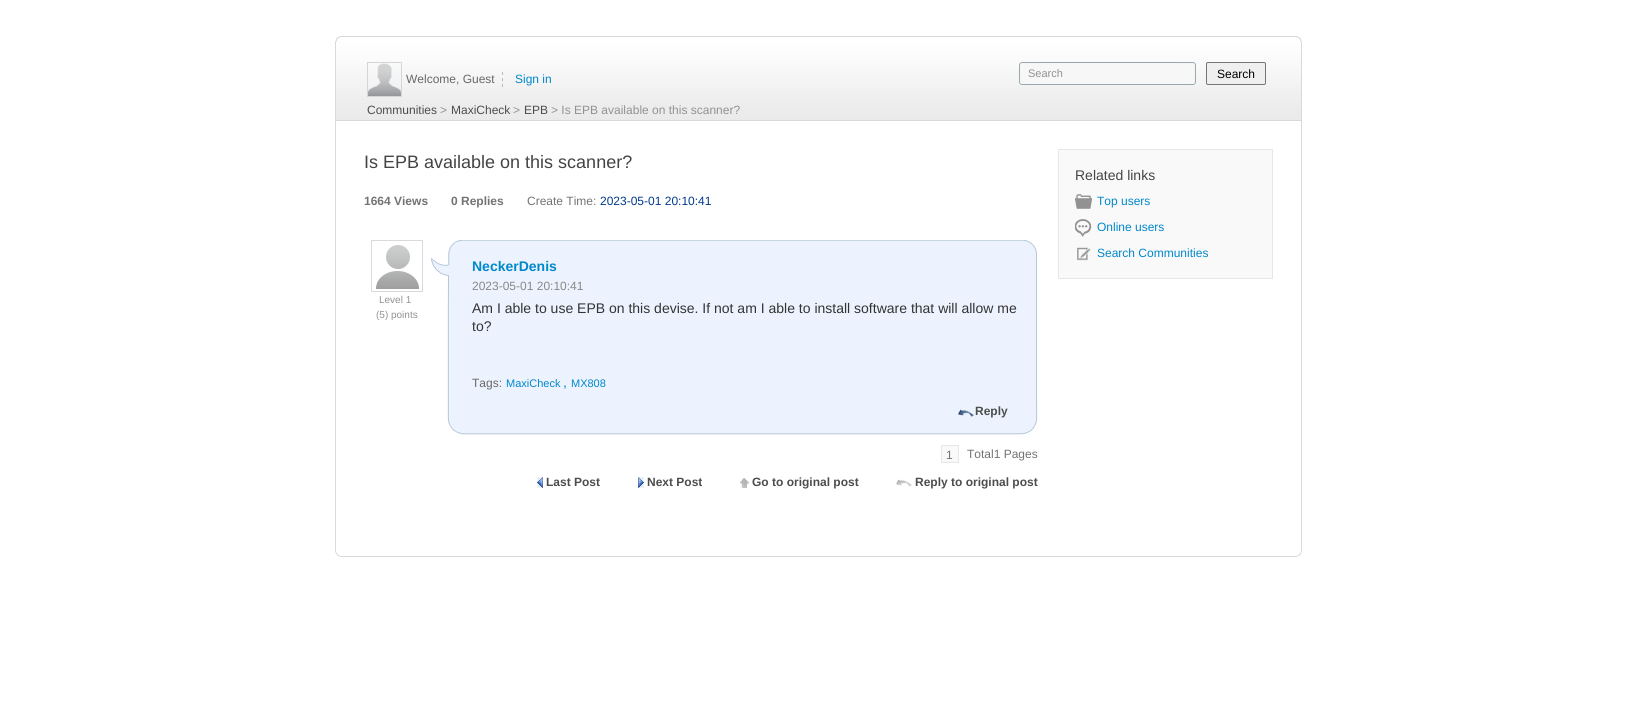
#include <cairo.h>
#include <math.h>
#include <stddef.h>

static cairo_t *ctx;

static void use_color(int r, int g, int b) {
    cairo_set_source_rgb(ctx, r / 255.0, g / 255.0, b / 255.0);
}

static void round_rect(double x, double y, double w, double h, double r) {
    cairo_new_sub_path(ctx);
    cairo_arc(ctx, x + w - r, y + h - r, r, 0, M_PI / 2);
    cairo_arc(ctx, x + r, y + h - r, r, M_PI / 2, M_PI);
    cairo_arc(ctx, x + r, y + r, r, M_PI, 1.5 * M_PI);
    cairo_arc(ctx, x + w - r, y + r, r, 1.5 * M_PI, 2 * M_PI);
    cairo_close_path(ctx);
}

static void picture(const char *path, double x, double y, double w, double h) {
    cairo_surface_t *image = cairo_image_surface_create_from_png(path);
    cairo_save(ctx);
    cairo_set_source_surface(ctx, image, x, y);
    cairo_rectangle(ctx, x, y, w, h);
    cairo_fill(ctx);
    cairo_restore(ctx);
    cairo_surface_destroy(image);
}

int main(void) {
    cairo_surface_t *surface = cairo_image_surface_create(CAIRO_FORMAT_RGB24, 1637, 723);
    ctx = cairo_create(surface);
    cairo_font_options_t *options = cairo_font_options_create();
    cairo_font_options_set_hint_metrics(options, CAIRO_HINT_METRICS_OFF);
    cairo_font_options_set_hint_style(options, CAIRO_HINT_STYLE_NONE);
    cairo_set_font_options(ctx, options);
    cairo_set_miter_limit(ctx, 4);
    use_color(255, 255, 255);
    cairo_paint(ctx);
    picture("img1.png", 335, 36, 967, 84);
    cairo_rectangle(ctx, 367.5, 62.5, 34, 34);
    use_color(213, 213, 213);
    cairo_set_line_width(ctx, 1);
    cairo_stroke(ctx);
    picture("img2.png", 368, 63, 33, 33);
    cairo_select_font_face(ctx, "Liberation Sans", CAIRO_FONT_SLANT_NORMAL, CAIRO_FONT_WEIGHT_NORMAL);
    cairo_set_font_size(ctx, 12);
    use_color(104, 104, 104);
    cairo_move_to(ctx, 406, 83);
    cairo_show_text(ctx, "Welcome, Guest");
    picture("img3.png", 502, 72, 1, 15);
    use_color(0, 136, 204);
    cairo_move_to(ctx, 515, 83);
    cairo_show_text(ctx, "Sign in");
    picture("img4.png", 1019, 62, 177, 23);
    cairo_set_font_size(ctx, 11);
    use_color(146, 146, 146);
    cairo_move_to(ctx, 1028, 77);
    cairo_show_text(ctx, "Search");
    use_color(239, 239, 239);
    round_rect(1206.5, 62.5, 59, 22, 1.5);
    cairo_fill_preserve(ctx);
    use_color(118, 118, 118);
    cairo_stroke(ctx);
    cairo_set_font_size(ctx, 12);
    use_color(0, 0, 0);
    cairo_move_to(ctx, 1217, 78);
    cairo_show_text(ctx, "Search");
    use_color(77, 77, 77);
    cairo_move_to(ctx, 367, 114);
    cairo_show_text(ctx, "Communities");
    use_color(146, 146, 146);
    cairo_move_to(ctx, 440, 114);
    cairo_show_text(ctx, ">");
    use_color(77, 77, 77);
    cairo_move_to(ctx, 451, 114);
    cairo_show_text(ctx, "MaxiCheck");
    use_color(146, 146, 146);
    cairo_move_to(ctx, 513, 114);
    cairo_show_text(ctx, ">");
    use_color(77, 77, 77);
    cairo_move_to(ctx, 524, 114);
    cairo_show_text(ctx, "EPB");
    use_color(146, 146, 146);
    cairo_move_to(ctx, 551, 114);
    cairo_show_text(ctx, "> Is EPB available on this scanner?");
    use_color(217, 217, 217);
    cairo_rectangle(ctx, 335, 120, 967, 1);
    cairo_fill(ctx);
    cairo_rectangle(ctx, 1301, 120, 1, 429);
    cairo_fill(ctx);
    cairo_rectangle(ctx, 335, 120, 1, 429);
    cairo_fill(ctx);
    cairo_set_font_size(ctx, 18);
    use_color(68, 68, 68);
    cairo_move_to(ctx, 364, 168);
    cairo_show_text(ctx, "Is EPB available on this scanner?");
    cairo_select_font_face(ctx, "Liberation Sans", CAIRO_FONT_SLANT_NORMAL, CAIRO_FONT_WEIGHT_BOLD);
    cairo_set_font_size(ctx, 12);
    use_color(115, 115, 115);
    cairo_move_to(ctx, 364, 205);
    cairo_show_text(ctx, "1664 Views");
    cairo_move_to(ctx, 451, 205);
    cairo_show_text(ctx, "0 Replies");
    cairo_select_font_face(ctx, "Liberation Sans", CAIRO_FONT_SLANT_NORMAL, CAIRO_FONT_WEIGHT_NORMAL);
    cairo_move_to(ctx, 527, 205);
    cairo_show_text(ctx, "Create Time:");
    use_color(1, 57, 141);
    cairo_move_to(ctx, 600, 205);
    cairo_show_text(ctx, "2023-05-01 20:10:41");
    cairo_rectangle(ctx, 371.5, 240.5, 51, 51);
    use_color(219, 217, 220);
    cairo_stroke(ctx);
    picture("img5.png", 376, 245, 43, 44);
    cairo_set_font_size(ctx, 10);
    use_color(146, 146, 146);
    cairo_move_to(ctx, 379, 303);
    cairo_show_text(ctx, "Level 1");
    cairo_move_to(ctx, 376, 318);
    cairo_show_text(ctx, "(5) points");
    picture("img6.png", 431, 240, 606, 59);
    cairo_select_font_face(ctx, "Liberation Sans", CAIRO_FONT_SLANT_NORMAL, CAIRO_FONT_WEIGHT_BOLD);
    cairo_set_font_size(ctx, 14);
    use_color(0, 136, 204);
    cairo_move_to(ctx, 472, 271);
    cairo_show_text(ctx, "NeckerDenis");
    cairo_select_font_face(ctx, "Liberation Sans", CAIRO_FONT_SLANT_NORMAL, CAIRO_FONT_WEIGHT_NORMAL);
    cairo_set_font_size(ctx, 12);
    use_color(136, 136, 136);
    cairo_move_to(ctx, 472, 290);
    cairo_show_text(ctx, "2023-05-01 20:10:41");
    picture("img7.png", 447, 299, 590, 60);
    cairo_set_font_size(ctx, 14);
    use_color(51, 51, 51);
    cairo_move_to(ctx, 472, 313);
    cairo_show_text(ctx, "Am I able to use EPB on this devise. If not am I able to install software that will allow me");
    cairo_move_to(ctx, 472, 331);
    cairo_show_text(ctx, "to?");
    picture("img8.png", 447, 359, 590, 43);
    cairo_set_font_size(ctx, 12);
    use_color(104, 104, 104);
    cairo_move_to(ctx, 472, 387);
    cairo_show_text(ctx, "Tags:");
    cairo_set_font_size(ctx, 11);
    use_color(0, 136, 204);
    cairo_move_to(ctx, 506, 387);
    cairo_show_text(ctx, "MaxiCheck");
    cairo_set_font_size(ctx, 14);
    cairo_move_to(ctx, 563, 387);
    cairo_show_text(ctx, ",");
    cairo_set_font_size(ctx, 11);
    cairo_move_to(ctx, 571, 387);
    cairo_show_text(ctx, "MX808");
    picture("img9.png", 447, 402, 591, 33);
    cairo_select_font_face(ctx, "Liberation Sans", CAIRO_FONT_SLANT_NORMAL, CAIRO_FONT_WEIGHT_BOLD);
    cairo_set_font_size(ctx, 12);
    use_color(77, 77, 77);
    cairo_move_to(ctx, 975, 415);
    cairo_show_text(ctx, "Reply");
    use_color(249, 249, 249);
    cairo_rectangle(ctx, 941.5, 445.5, 17, 17);
    cairo_fill_preserve(ctx);
    use_color(232, 230, 231);
    cairo_stroke(ctx);
    cairo_select_font_face(ctx, "Liberation Sans", CAIRO_FONT_SLANT_NORMAL, CAIRO_FONT_WEIGHT_NORMAL);
    use_color(115, 115, 115);
    cairo_move_to(ctx, 946, 459);
    cairo_show_text(ctx, "1");
    cairo_move_to(ctx, 967, 458);
    cairo_show_text(ctx, "Total1 Pages");
    picture("img10.png", 537, 477, 6, 11);
    cairo_select_font_face(ctx, "Liberation Sans", CAIRO_FONT_SLANT_NORMAL, CAIRO_FONT_WEIGHT_BOLD);
    use_color(77, 77, 77);
    cairo_move_to(ctx, 546, 486);
    cairo_show_text(ctx, "Last Post");
    picture("img11.png", 638, 477, 6, 11);
    cairo_move_to(ctx, 647, 486);
    cairo_show_text(ctx, "Next Post");
    picture("img12.png", 740, 478, 9, 10);
    cairo_move_to(ctx, 752, 486);
    cairo_show_text(ctx, "Go to original post");
    picture("img13.png", 896, 479, 16, 8);
    cairo_move_to(ctx, 915, 486);
    cairo_show_text(ctx, "Reply to original post");
    use_color(249, 249, 249);
    cairo_rectangle(ctx, 1058.5, 149.5, 214, 129);
    cairo_fill_preserve(ctx);
    use_color(232, 230, 231);
    cairo_stroke(ctx);
    cairo_select_font_face(ctx, "Liberation Sans", CAIRO_FONT_SLANT_NORMAL, CAIRO_FONT_WEIGHT_NORMAL);
    cairo_set_font_size(ctx, 14);
    use_color(68, 68, 68);
    cairo_move_to(ctx, 1075, 180);
    cairo_show_text(ctx, "Related links");
    picture("img14.png", 1075, 194, 17, 15);
    cairo_set_font_size(ctx, 12);
    use_color(0, 136, 204);
    cairo_move_to(ctx, 1097, 205);
    cairo_show_text(ctx, "Top users");
    picture("img15.png", 1075, 219, 17, 18);
    cairo_move_to(ctx, 1097, 231);
    cairo_show_text(ctx, "Online users");
    picture("img16.png", 1077, 247, 14, 14);
    cairo_move_to(ctx, 1097, 257);
    cairo_show_text(ctx, "Search Communities");
    picture("img17.png", 335, 549, 967, 8);
    cairo_surface_write_to_png(surface, "result.png");
    cairo_font_options_destroy(options);
    cairo_destroy(ctx);
    cairo_surface_destroy(surface);
    return 0;
}
